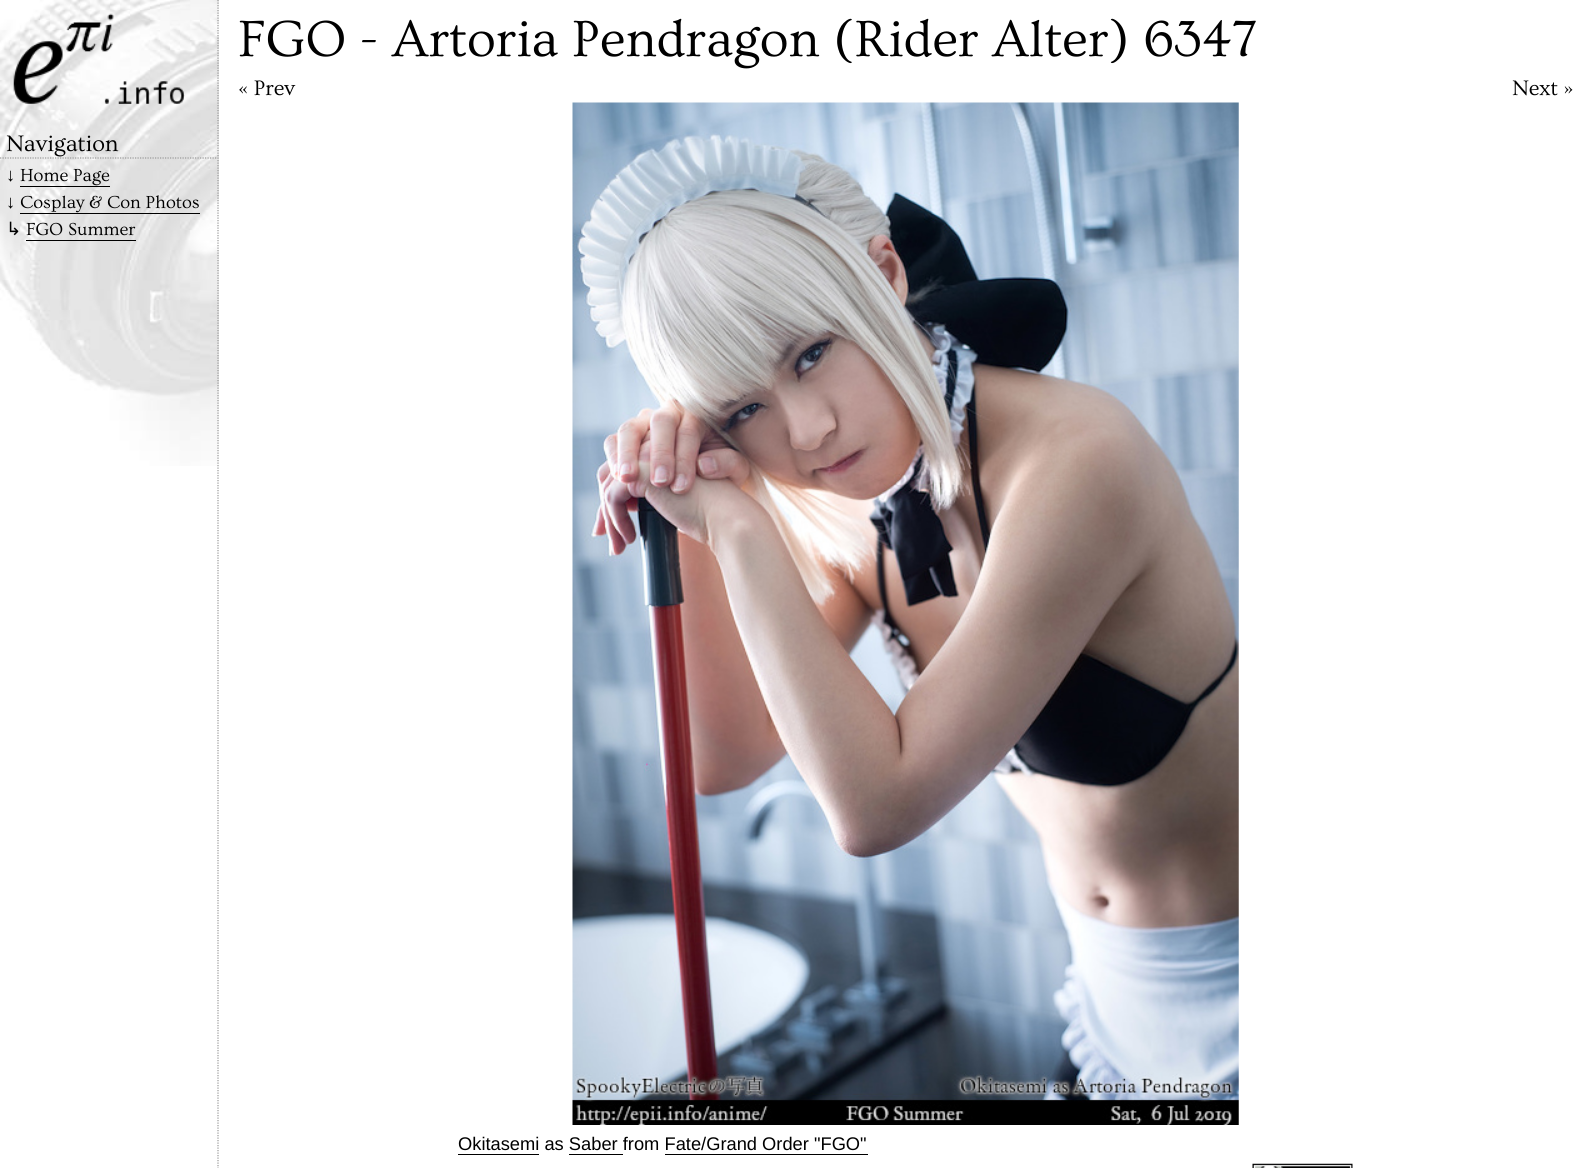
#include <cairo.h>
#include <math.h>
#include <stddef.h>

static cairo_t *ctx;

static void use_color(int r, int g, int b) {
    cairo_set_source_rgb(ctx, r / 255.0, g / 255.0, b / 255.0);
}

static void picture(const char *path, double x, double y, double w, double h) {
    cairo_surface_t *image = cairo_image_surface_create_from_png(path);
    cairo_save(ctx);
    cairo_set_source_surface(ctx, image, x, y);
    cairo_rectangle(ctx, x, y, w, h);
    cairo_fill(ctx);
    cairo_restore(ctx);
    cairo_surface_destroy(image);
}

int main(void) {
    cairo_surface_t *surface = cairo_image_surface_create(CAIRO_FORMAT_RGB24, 1592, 1168);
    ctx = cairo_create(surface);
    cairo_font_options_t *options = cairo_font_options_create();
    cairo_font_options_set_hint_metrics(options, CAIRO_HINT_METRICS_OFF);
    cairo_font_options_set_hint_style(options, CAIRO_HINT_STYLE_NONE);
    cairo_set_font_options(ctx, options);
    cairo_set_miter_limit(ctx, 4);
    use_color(255, 255, 255);
    cairo_paint(ctx);
    picture("img1.png", 0, 0, 219, 466);
    cairo_new_path(ctx);
    cairo_move_to(ctx, 218, 0);
    cairo_line_to(ctx, 218, 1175);
    use_color(153, 153, 153);
    cairo_set_line_width(ctx, 1.2);
    cairo_set_dash(ctx, (double[]){1.25, 1.25}, 2, 0);
    cairo_stroke(ctx);
    picture("img2.png", 13, 13, 172, 91);
    cairo_new_path(ctx);
    cairo_move_to(ctx, 0, 158);
    cairo_line_to(ctx, 217.5, 158);
    cairo_stroke(ctx);
    cairo_select_font_face(ctx, "Ovo", CAIRO_FONT_SLANT_NORMAL, CAIRO_FONT_WEIGHT_NORMAL);
    cairo_set_font_size(ctx, 23.5);
    use_color(0, 0, 0);
    cairo_move_to(ctx, 6, 151);
    cairo_show_text(ctx, "Navigation");
    cairo_select_font_face(ctx, "Liberation Serif", CAIRO_FONT_SLANT_NORMAL, CAIRO_FONT_WEIGHT_NORMAL);
    cairo_set_font_size(ctx, 18.3);
    cairo_move_to(ctx, 6, 181);
    cairo_show_text(ctx, "↓");
    cairo_select_font_face(ctx, "Ovo", CAIRO_FONT_SLANT_NORMAL, CAIRO_FONT_WEIGHT_NORMAL);
    cairo_move_to(ctx, 20, 181);
    cairo_show_text(ctx, "Home Page");
    cairo_rectangle(ctx, 20, 186, 90, 1);
    cairo_fill(ctx);
    cairo_select_font_face(ctx, "Liberation Serif", CAIRO_FONT_SLANT_NORMAL, CAIRO_FONT_WEIGHT_NORMAL);
    cairo_move_to(ctx, 6, 208);
    cairo_show_text(ctx, "↓");
    cairo_select_font_face(ctx, "Ovo", CAIRO_FONT_SLANT_NORMAL, CAIRO_FONT_WEIGHT_NORMAL);
    cairo_move_to(ctx, 20, 208);
    cairo_show_text(ctx, "Cosplay & Con Photos");
    cairo_rectangle(ctx, 20, 213, 180, 1);
    cairo_fill(ctx);
    cairo_select_font_face(ctx, "DejaVu Sans", CAIRO_FONT_SLANT_NORMAL, CAIRO_FONT_WEIGHT_NORMAL);
    cairo_move_to(ctx, 6, 235);
    cairo_show_text(ctx, "↳");
    cairo_select_font_face(ctx, "Ovo", CAIRO_FONT_SLANT_NORMAL, CAIRO_FONT_WEIGHT_NORMAL);
    cairo_move_to(ctx, 26, 235);
    cairo_show_text(ctx, "FGO Summer");
    cairo_rectangle(ctx, 26, 240, 110, 1);
    cairo_fill(ctx);
    cairo_set_font_size(ctx, 53.3);
    cairo_move_to(ctx, 238, 56);
    cairo_show_text(ctx, "FGO - Artoria Pendragon (Rider Alter) 6347");
    cairo_set_font_size(ctx, 22);
    cairo_move_to(ctx, 238, 95);
    cairo_show_text(ctx, "« Prev");
    cairo_move_to(ctx, 1512, 95);
    cairo_show_text(ctx, "Next »");
    picture("img3.png", 572, 102, 667, 1023);
    cairo_select_font_face(ctx, "Liberation Sans", CAIRO_FONT_SLANT_NORMAL, CAIRO_FONT_WEIGHT_NORMAL);
    cairo_set_font_size(ctx, 18.3);
    cairo_move_to(ctx, 458, 1150);
    cairo_show_text(ctx, "Okitasemi as Saber from Fate/Grand Order \"FGO\"");
    cairo_rectangle(ctx, 458, 1154, 81, 1);
    cairo_fill(ctx);
    cairo_rectangle(ctx, 569, 1154, 54, 1);
    cairo_fill(ctx);
    cairo_rectangle(ctx, 665, 1154, 203, 1);
    cairo_fill(ctx);
    picture("img4.png", 1252, 1163, 101, 5);
    cairo_surface_write_to_png(surface, "result.png");
    cairo_font_options_destroy(options);
    cairo_destroy(ctx);
    cairo_surface_destroy(surface);
    return 0;
}
